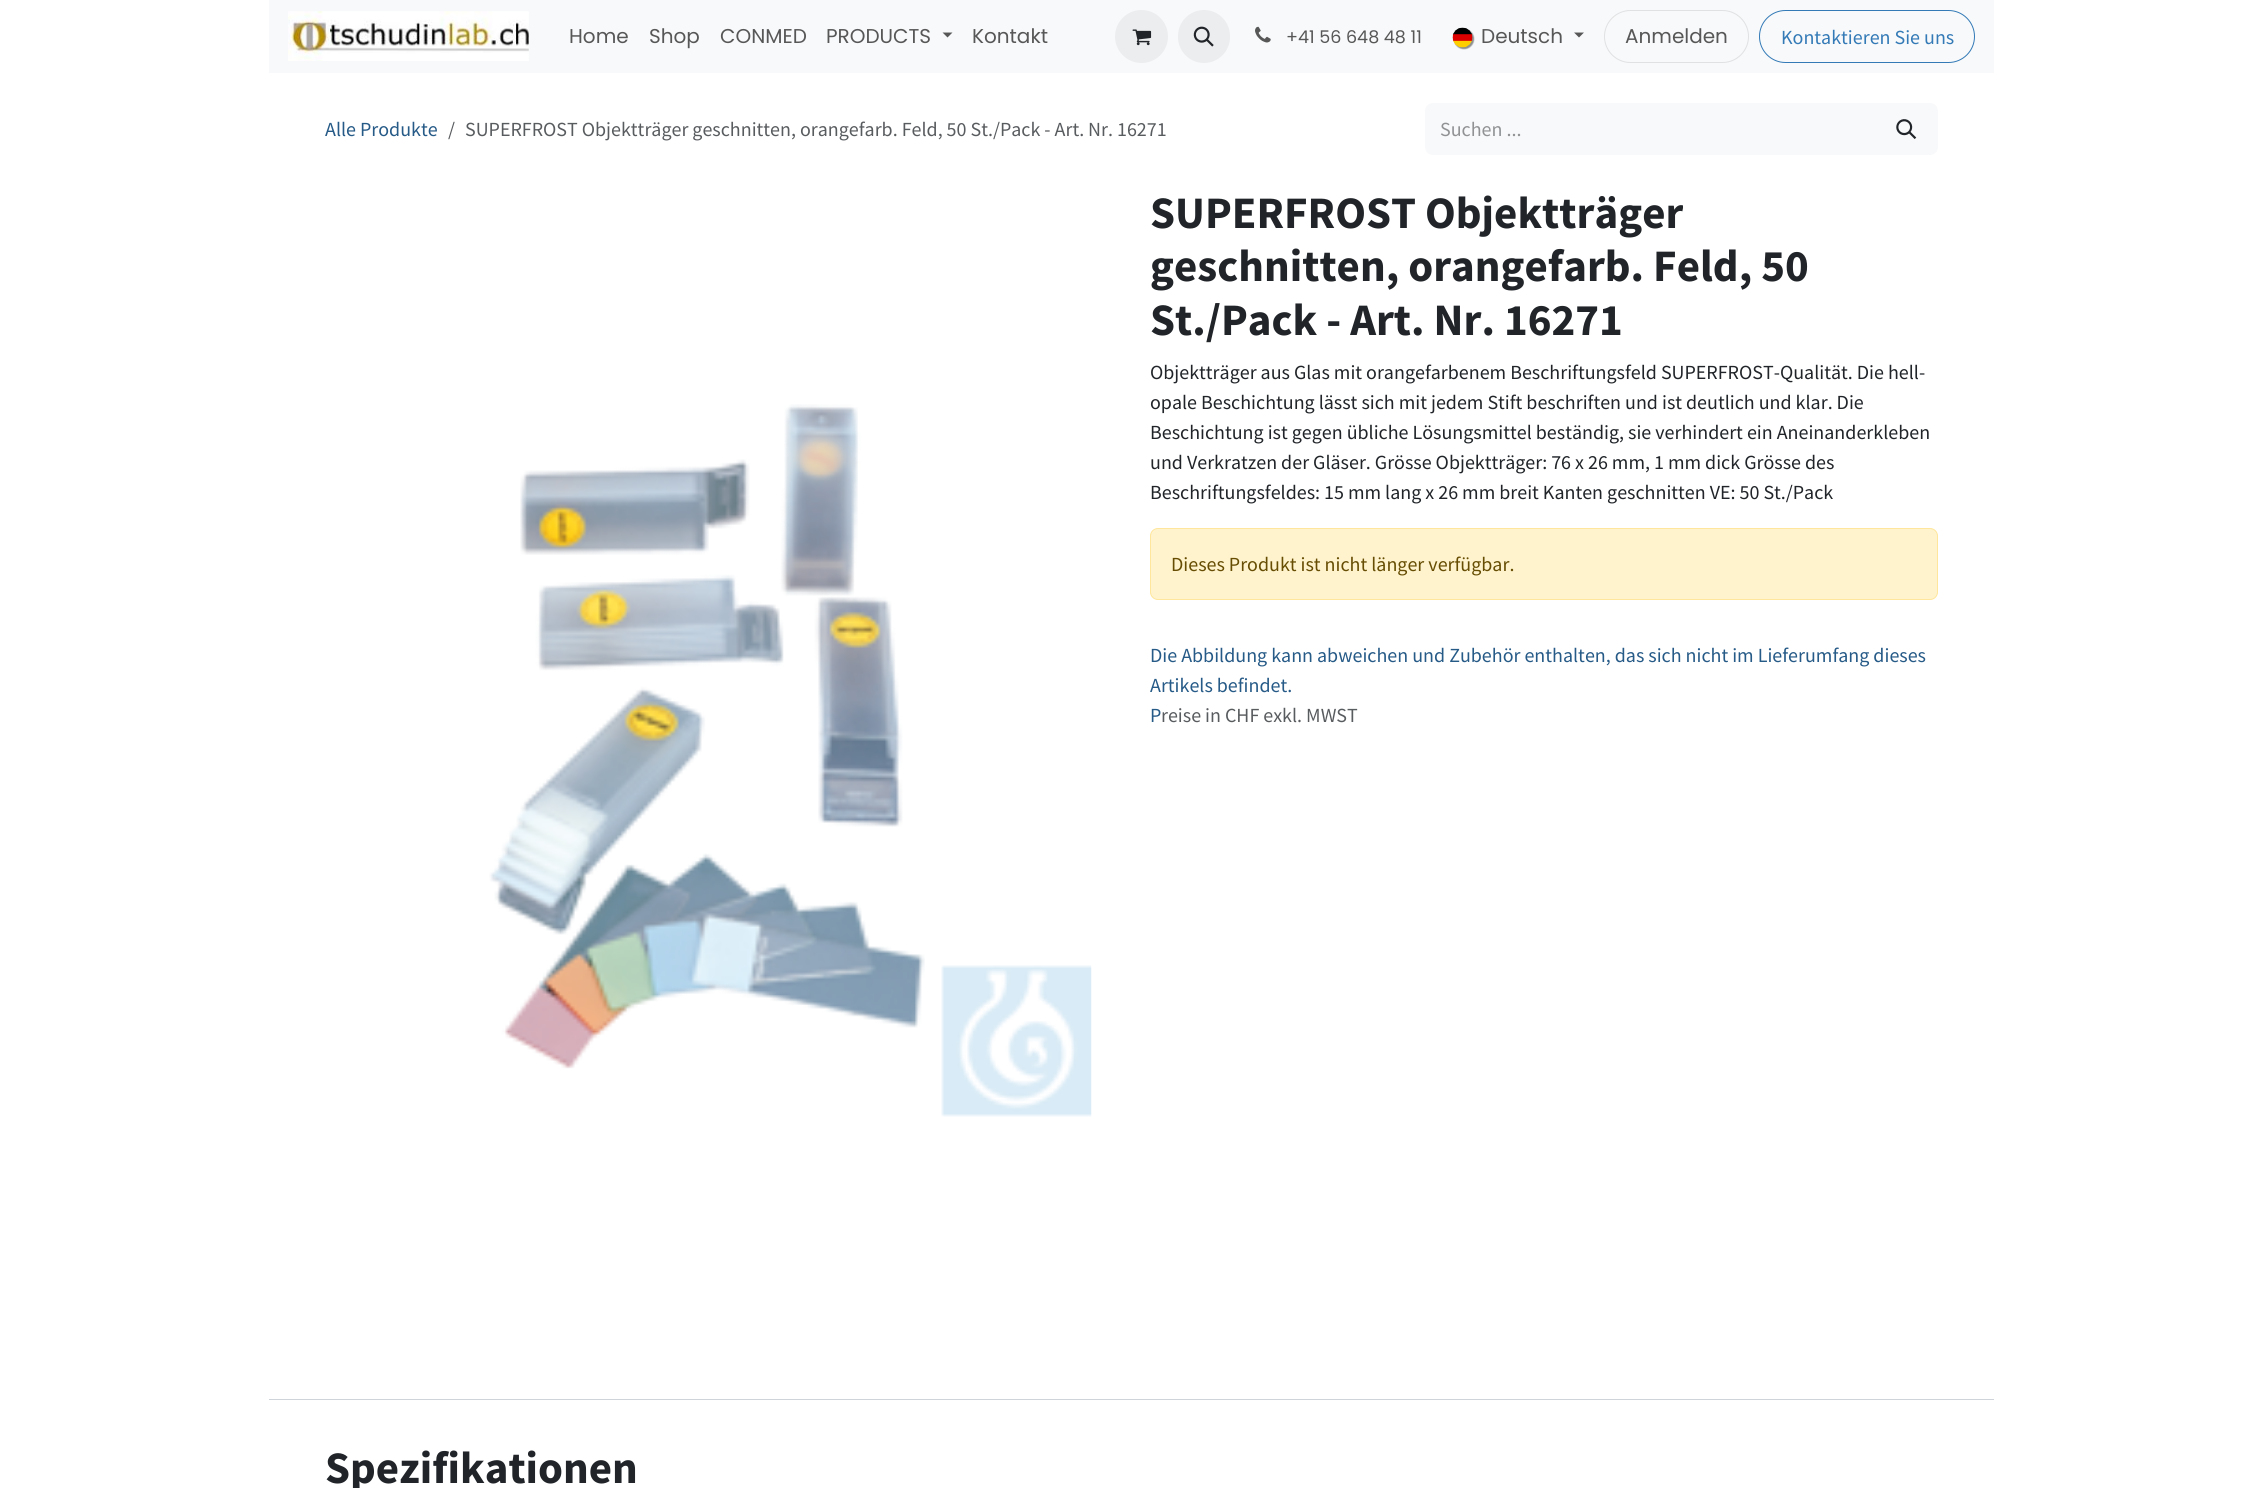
#include <cairo.h>
#include <math.h>
#include <stddef.h>

static cairo_t *ctx;

static void use_color(int r, int g, int b) {
    cairo_set_source_rgb(ctx, r / 255.0, g / 255.0, b / 255.0);
}

static void round_rect(double x, double y, double w, double h, double r) {
    cairo_new_sub_path(ctx);
    cairo_arc(ctx, x + w - r, y + h - r, r, 0, M_PI / 2);
    cairo_arc(ctx, x + r, y + h - r, r, M_PI / 2, M_PI);
    cairo_arc(ctx, x + r, y + r, r, M_PI, 1.5 * M_PI);
    cairo_arc(ctx, x + w - r, y + r, r, 1.5 * M_PI, 2 * M_PI);
    cairo_close_path(ctx);
}

static void shadow(double x, double y, double w, double h, double r, double blur, double alpha) {
    cairo_push_group_with_content(ctx, CAIRO_CONTENT_ALPHA);
    cairo_set_operator(ctx, CAIRO_OPERATOR_SOURCE);
    for (int i = 15; i >= -15 && fmin(w, h) + blur * i / 3 > 0; i -= 2) {
        double e = blur * i / 6;
        cairo_set_source_rgba(ctx, 0, 0, 0, alpha * erfc((i - 1) / 8.5) / 2);
        round_rect(x - e, y - e, w + 2 * e, h + 2 * e, fmax(0, fmin(r + e + blur * .6, fmin(w, h) / 2 + e)));
        cairo_fill(ctx);
    }
    cairo_pattern_t *soft = cairo_pop_group(ctx);
    cairo_mask(ctx, soft);
    cairo_pattern_destroy(soft);
}

static void picture(const char *path, double x, double y, double w, double h) {
    cairo_surface_t *image = cairo_image_surface_create_from_png(path);
    cairo_save(ctx);
    cairo_set_source_surface(ctx, image, x, y);
    cairo_rectangle(ctx, x, y, w, h);
    cairo_fill(ctx);
    cairo_restore(ctx);
    cairo_surface_destroy(image);
}

int main(void) {
    cairo_surface_t *surface = cairo_image_surface_create(CAIRO_FORMAT_RGB24, 2262, 1488);
    ctx = cairo_create(surface);
    cairo_font_options_t *options = cairo_font_options_create();
    cairo_font_options_set_hint_metrics(options, CAIRO_HINT_METRICS_OFF);
    cairo_font_options_set_hint_style(options, CAIRO_HINT_STYLE_NONE);
    cairo_set_font_options(ctx, options);
    cairo_set_miter_limit(ctx, 4);
    use_color(255, 255, 255);
    cairo_paint(ctx);
    use_color(248, 249, 250);
    cairo_rectangle(ctx, 269, 0, 1725, 73);
    cairo_fill(ctx);
    picture("img1.png", 288, 11, 241, 50);
    cairo_select_font_face(ctx, "Poppins", CAIRO_FONT_SLANT_NORMAL, CAIRO_FONT_WEIGHT_NORMAL);
    cairo_set_font_size(ctx, 20);
    use_color(87, 87, 88);
    cairo_move_to(ctx, 569, 43);
    cairo_show_text(ctx, "Home");
    cairo_move_to(ctx, 649, 43);
    cairo_show_text(ctx, "Shop");
    cairo_move_to(ctx, 720, 43);
    cairo_show_text(ctx, "CONMED");
    cairo_move_to(ctx, 826, 43);
    cairo_show_text(ctx, "PRODUCTS");
    cairo_new_path(ctx);
    cairo_move_to(ctx, 942.5, 32.5);
    cairo_line_to(ctx, 952.5, 32.5);
    cairo_line_to(ctx, 947.5, 37.5);
    cairo_close_path(ctx);
    cairo_fill(ctx);
    cairo_move_to(ctx, 972, 43);
    cairo_show_text(ctx, "Kontakt");
    use_color(236, 237, 238);
    cairo_new_path(ctx);
    cairo_arc(ctx, 1141.5, 36.5, 26.5, 0, 2 * M_PI);
    cairo_fill(ctx);
    picture("img2.png", 1132, 29, 20, 17);
    round_rect(1178, 10, 52, 53, 26);
    cairo_fill(ctx);
    picture("img3.png", 1193, 26, 21, 21);
    picture("img4.png", 1255, 26, 16, 17);
    cairo_set_font_size(ctx, 17.5);
    use_color(87, 87, 88);
    cairo_move_to(ctx, 1286, 43);
    cairo_show_text(ctx, "+41 56 648 48 11");
    use_color(0, 0, 0);
    shadow(1454, 29, 20, 20, 10, 0.5, 0.43);
    picture("img5.png", 1452, 27, 21, 21);
    cairo_set_font_size(ctx, 20);
    use_color(87, 87, 88);
    cairo_move_to(ctx, 1481, 43);
    cairo_show_text(ctx, "Deutsch");
    cairo_new_path(ctx);
    cairo_move_to(ctx, 1574, 32.5);
    cairo_line_to(ctx, 1584, 32.5);
    cairo_line_to(ctx, 1579, 37.5);
    cairo_close_path(ctx);
    cairo_fill(ctx);
    round_rect(1604.5, 10.5, 144, 52, 26);
    use_color(224, 225, 226);
    cairo_set_line_width(ctx, 1);
    cairo_stroke(ctx);
    use_color(87, 87, 88);
    cairo_move_to(ctx, 1625, 43);
    cairo_show_text(ctx, "Anmelden");
    round_rect(1759.5, 10.5, 215, 52, 26);
    use_color(51, 122, 183);
    cairo_stroke(ctx);
    cairo_select_font_face(ctx, "Source Sans Pro", CAIRO_FONT_SLANT_NORMAL, CAIRO_FONT_WEIGHT_NORMAL);
    cairo_move_to(ctx, 1781, 44);
    cairo_show_text(ctx, "Kontaktieren Sie uns");
    use_color(38, 90, 135);
    cairo_move_to(ctx, 325, 136);
    cairo_show_text(ctx, "Alle Produkte");
    use_color(89, 92, 95);
    cairo_move_to(ctx, 448, 136);
    cairo_show_text(ctx, "/");
    cairo_move_to(ctx, 465, 136);
    cairo_show_text(ctx, "SUPERFROST Objektträger geschnitten, orangefarb. Feld, 50 St./Pack - Art. Nr. 16271");
    use_color(248, 249, 250);
    cairo_new_path(ctx);
    cairo_move_to(ctx, 1433, 103);
    cairo_line_to(ctx, 1876, 103);
    cairo_line_to(ctx, 1876, 155);
    cairo_line_to(ctx, 1433, 155);
    cairo_curve_to(ctx, 1428.5, 155, 1425, 151.5, 1425, 147);
    cairo_line_to(ctx, 1425, 111);
    cairo_curve_to(ctx, 1425, 106.5, 1428.5, 103, 1433, 103);
    cairo_close_path(ctx);
    cairo_fill(ctx);
    use_color(144, 146, 148);
    cairo_move_to(ctx, 1440, 136);
    cairo_show_text(ctx, "Suchen ...");
    use_color(248, 249, 250);
    cairo_new_path(ctx);
    cairo_move_to(ctx, 1875, 103);
    cairo_line_to(ctx, 1930, 103);
    cairo_curve_to(ctx, 1934.5, 103, 1938, 106.5, 1938, 111);
    cairo_line_to(ctx, 1938, 147);
    cairo_curve_to(ctx, 1938, 151.5, 1934.5, 155, 1930, 155);
    cairo_line_to(ctx, 1875, 155);
    cairo_close_path(ctx);
    cairo_fill(ctx);
    picture("img6.png", 1896, 119, 21, 20);
    picture("img7.png", 489, 404, 603, 713);
    cairo_select_font_face(ctx, "Source Sans Pro", CAIRO_FONT_SLANT_NORMAL, CAIRO_FONT_WEIGHT_BOLD);
    cairo_set_font_size(ctx, 45);
    use_color(33, 37, 41);
    cairo_move_to(ctx, 1150, 228);
    cairo_show_text(ctx, "SUPERFROST Objektträger");
    cairo_move_to(ctx, 1150, 281);
    cairo_show_text(ctx, "geschnitten, orangefarb. Feld, 50");
    cairo_move_to(ctx, 1150, 335);
    cairo_show_text(ctx, "St./Pack - Art. Nr. 16271");
    cairo_select_font_face(ctx, "Source Sans Pro", CAIRO_FONT_SLANT_NORMAL, CAIRO_FONT_WEIGHT_NORMAL);
    cairo_set_font_size(ctx, 20);
    cairo_move_to(ctx, 1150, 379);
    cairo_show_text(ctx, "Objektträger aus Glas mit orangefarbenem Beschriftungsfeld SUPERFROST-Qualität. Die hell-");
    cairo_move_to(ctx, 1150, 409);
    cairo_show_text(ctx, "opale Beschichtung lässt sich mit jedem Stift beschriften und ist deutlich und klar. Die");
    cairo_move_to(ctx, 1150, 439);
    cairo_show_text(ctx, "Beschichtung ist gegen übliche Lösungsmittel beständig, sie verhindert ein Aneinanderkleben");
    cairo_move_to(ctx, 1150, 469);
    cairo_show_text(ctx, "und Verkratzen der Gläser. Grösse Objektträger: 76 x 26 mm, 1 mm dick Grösse des");
    cairo_move_to(ctx, 1150, 499);
    cairo_show_text(ctx, "Beschriftungsfeldes: 15 mm lang x 26 mm breit Kanten geschnitten VE: 50 St./Pack");
    use_color(255, 243, 205);
    round_rect(1150.5, 528.5, 787, 71, 7.5);
    cairo_fill_preserve(ctx);
    use_color(255, 230, 156);
    cairo_stroke(ctx);
    use_color(102, 77, 3);
    cairo_move_to(ctx, 1171, 571);
    cairo_show_text(ctx, "Dieses Produkt ist nicht länger verfügbar.");
    use_color(38, 90, 135);
    cairo_move_to(ctx, 1150, 662);
    cairo_show_text(ctx, "Die Abbildung kann abweichen und Zubehör enthalten, das sich nicht im Lieferumfang dieses");
    cairo_move_to(ctx, 1150, 692);
    cairo_show_text(ctx, "Artikels befindet.");
    cairo_move_to(ctx, 1150, 722);
    cairo_show_text(ctx, "P");
    use_color(89, 92, 95);
    cairo_move_to(ctx, 1161, 722);
    cairo_show_text(ctx, "reise in CHF exkl. MWST");
    use_color(206, 212, 218);
    cairo_rectangle(ctx, 269, 1399, 1725, 1);
    cairo_fill(ctx);
    cairo_select_font_face(ctx, "Source Sans Pro", CAIRO_FONT_SLANT_NORMAL, CAIRO_FONT_WEIGHT_BOLD);
    cairo_set_font_size(ctx, 45);
    use_color(33, 37, 41);
    cairo_move_to(ctx, 325, 1483);
    cairo_show_text(ctx, "Spezifikationen");
    cairo_surface_write_to_png(surface, "result.png");
    cairo_font_options_destroy(options);
    cairo_destroy(ctx);
    cairo_surface_destroy(surface);
    return 0;
}
